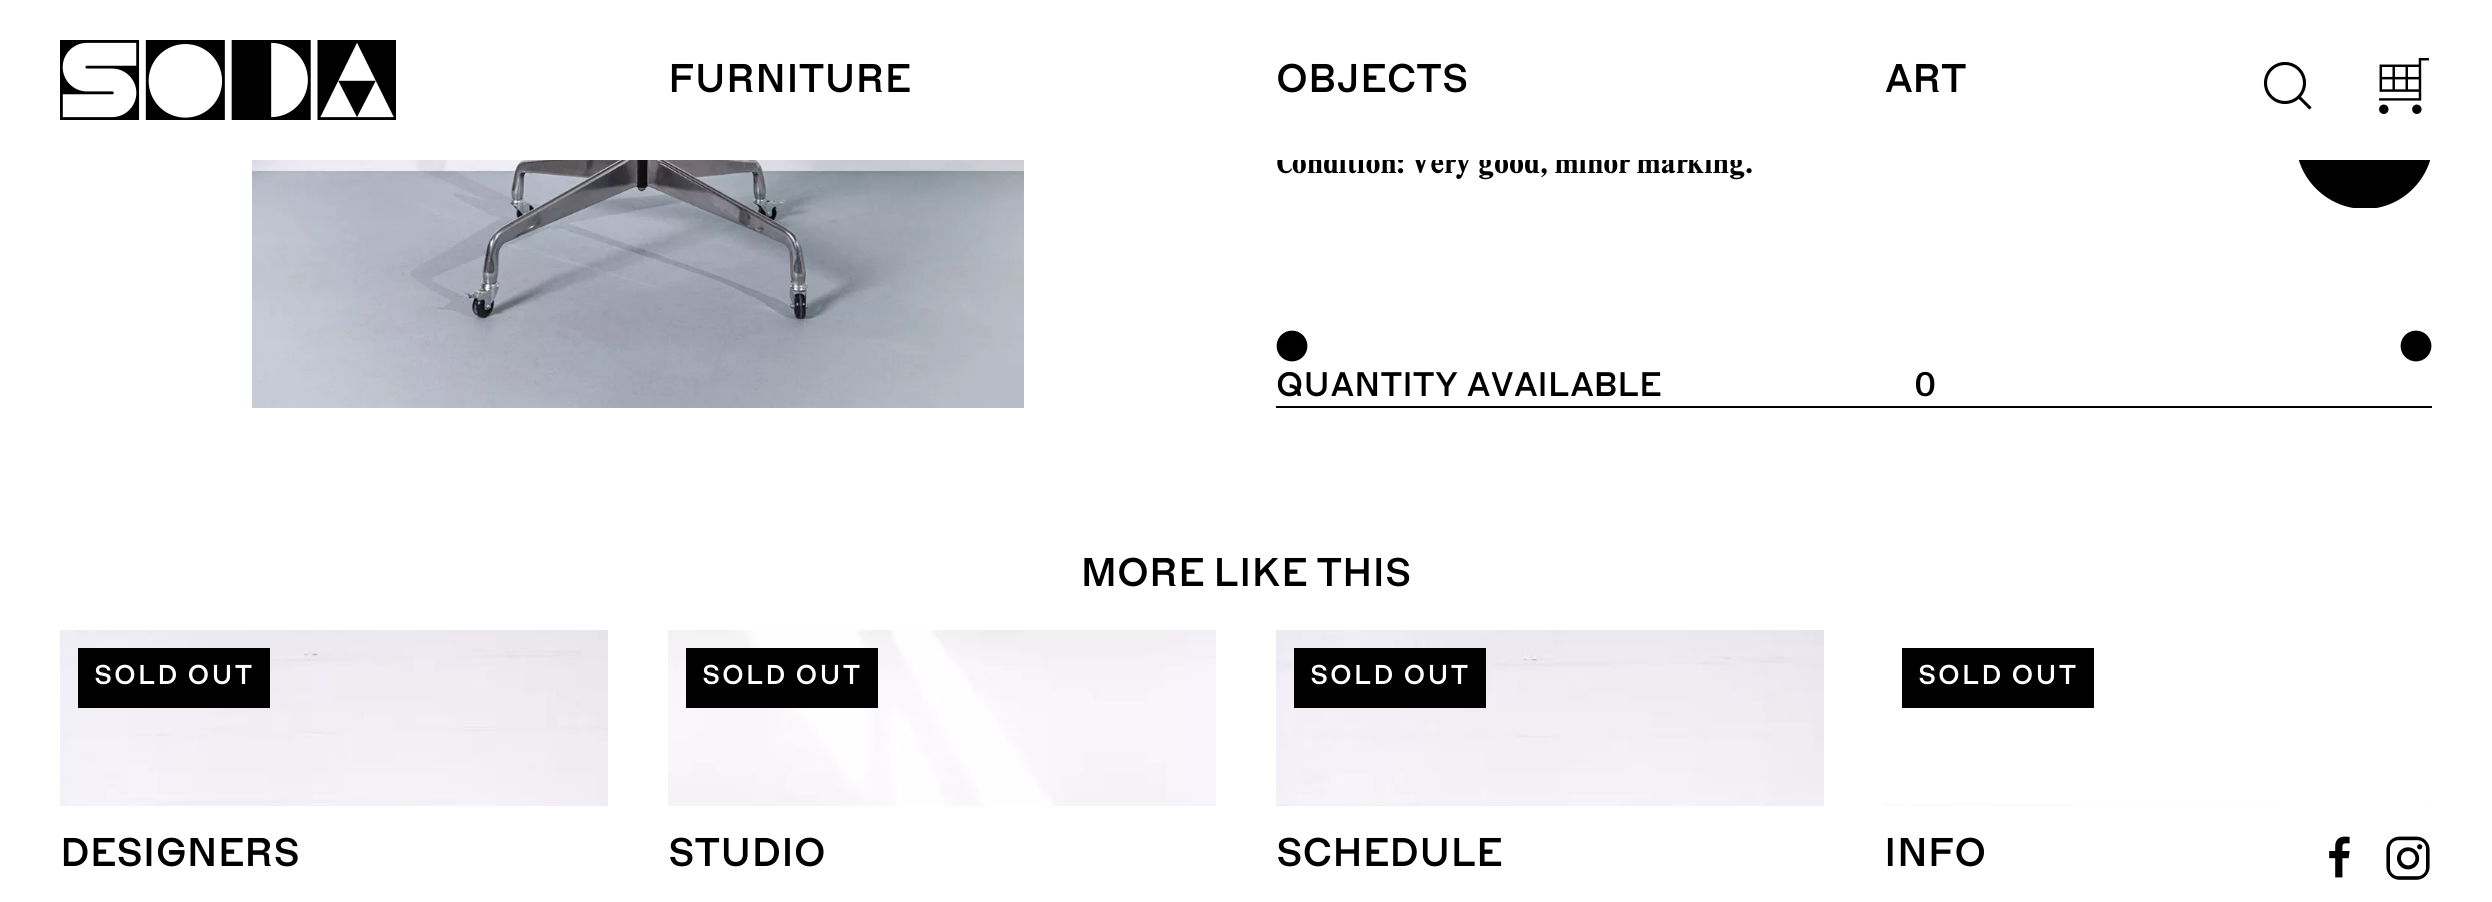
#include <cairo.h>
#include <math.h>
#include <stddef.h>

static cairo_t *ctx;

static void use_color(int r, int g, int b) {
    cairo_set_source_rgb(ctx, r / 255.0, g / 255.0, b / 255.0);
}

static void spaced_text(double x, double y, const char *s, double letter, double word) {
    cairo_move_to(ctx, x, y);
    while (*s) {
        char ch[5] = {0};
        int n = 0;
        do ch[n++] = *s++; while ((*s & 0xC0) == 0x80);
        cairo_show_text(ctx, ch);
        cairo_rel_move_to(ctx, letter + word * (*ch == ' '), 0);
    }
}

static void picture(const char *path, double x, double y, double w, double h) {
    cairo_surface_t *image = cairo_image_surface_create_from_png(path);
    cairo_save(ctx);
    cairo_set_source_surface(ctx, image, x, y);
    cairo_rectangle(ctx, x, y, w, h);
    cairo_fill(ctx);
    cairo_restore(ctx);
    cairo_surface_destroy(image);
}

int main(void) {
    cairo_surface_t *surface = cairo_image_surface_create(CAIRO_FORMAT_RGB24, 2492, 902);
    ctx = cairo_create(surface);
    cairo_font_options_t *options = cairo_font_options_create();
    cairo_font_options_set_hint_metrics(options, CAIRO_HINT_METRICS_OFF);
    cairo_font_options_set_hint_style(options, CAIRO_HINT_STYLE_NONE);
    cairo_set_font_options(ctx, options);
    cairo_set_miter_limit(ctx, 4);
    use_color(255, 255, 255);
    cairo_paint(ctx);
    cairo_select_font_face(ctx, "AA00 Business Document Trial", CAIRO_FONT_SLANT_NORMAL, CAIRO_FONT_WEIGHT_BOLD);
    cairo_set_font_size(ctx, 30);
    use_color(0, 0, 0);
    cairo_move_to(ctx, 1276, 173);
    cairo_show_text(ctx, "Condition: Very good, minor marking.");
    cairo_save(ctx);
    cairo_rectangle(ctx, 2296, 72, 136, 136);
    cairo_clip(ctx);
    cairo_new_path(ctx);
    cairo_move_to(ctx, 2365, 72);
    cairo_curve_to(ctx, 2327, 72, 2296, 103, 2296, 141);
    cairo_curve_to(ctx, 2296, 178, 2327, 209, 2365, 209);
    cairo_curve_to(ctx, 2402, 209, 2433, 178, 2433, 141);
    cairo_curve_to(ctx, 2433, 103, 2402, 72, 2365, 72);
    cairo_close_path(ctx);
    cairo_move_to(ctx, 2365, 154);
    cairo_curve_to(ctx, 2347, 154, 2347, 127, 2365, 127);
    cairo_curve_to(ctx, 2382, 127, 2382, 154, 2365, 154);
    cairo_close_path(ctx);
    cairo_fill(ctx);
    cairo_restore(ctx);
    use_color(255, 255, 255);
    cairo_rectangle(ctx, 1277, 72, 1155, 88);
    cairo_fill(ctx);
    picture("img1.png", 60, 40, 336, 80);
    cairo_select_font_face(ctx, "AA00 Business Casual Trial", CAIRO_FONT_SLANT_NORMAL, CAIRO_FONT_WEIGHT_NORMAL);
    cairo_set_font_size(ctx, 40);
    use_color(0, 0, 0);
    cairo_move_to(ctx, 668, 92);
    cairo_show_text(ctx, "FURNITURE");
    cairo_move_to(ctx, 1276, 92);
    cairo_show_text(ctx, "OBJECTS");
    cairo_move_to(ctx, 1884, 92);
    cairo_show_text(ctx, "ART");
    cairo_new_path(ctx);
    cairo_arc(ctx, 2285, 83, 19.5, 0, 2 * M_PI);
    cairo_set_line_width(ctx, 3.1);
    cairo_stroke(ctx);
    cairo_new_path(ctx);
    cairo_move_to(ctx, 2299, 97);
    cairo_line_to(ctx, 2310.5, 108.5);
    cairo_close_path(ctx);
    cairo_stroke(ctx);
    picture("img2.png", 2379, 58, 50, 56);
    picture("img3.png", 252, 160, 772, 248);
    cairo_arc(ctx, 1292, 346, 14.5, 0, 2 * M_PI);
    cairo_fill_preserve(ctx);
    cairo_set_line_width(ctx, 1.8);
    cairo_stroke(ctx);
    cairo_arc(ctx, 2416, 346, 14.5, 0, 2 * M_PI);
    cairo_fill_preserve(ctx);
    cairo_stroke(ctx);
    cairo_rectangle(ctx, 1276, 406, 1156, 2);
    cairo_fill(ctx);
    cairo_set_font_size(ctx, 34);
    cairo_move_to(ctx, 1276, 396);
    cairo_show_text(ctx, "QUANTITY AVAILABLE");
    cairo_move_to(ctx, 1914, 396);
    cairo_show_text(ctx, "0");
    cairo_set_font_size(ctx, 40);
    cairo_move_to(ctx, 1081, 586);
    cairo_show_text(ctx, "MORE LIKE THIS");
    picture("img4.png", 60, 630, 548, 176);
    cairo_rectangle(ctx, 78, 648, 192, 60);
    cairo_fill(ctx);
    cairo_set_font_size(ctx, 27.25);
    use_color(255, 255, 255);
    spaced_text(94, 684, "SOLD OUT", 2, 0);
    picture("img5.png", 668, 630, 548, 176);
    use_color(0, 0, 0);
    cairo_rectangle(ctx, 686, 648, 192, 60);
    cairo_fill(ctx);
    use_color(255, 255, 255);
    spaced_text(702, 684, "SOLD OUT", 2, 0);
    picture("img6.png", 1276, 630, 548, 176);
    use_color(0, 0, 0);
    cairo_rectangle(ctx, 1294, 648, 192, 60);
    cairo_fill(ctx);
    use_color(255, 255, 255);
    spaced_text(1310, 684, "SOLD OUT", 2, 0);
    use_color(0, 0, 0);
    cairo_rectangle(ctx, 1902, 648, 192, 60);
    cairo_fill(ctx);
    use_color(255, 255, 255);
    spaced_text(1918, 684, "SOLD OUT", 2, 0);
    picture("img7.png", 1884, 803, 548, 3);
    cairo_set_font_size(ctx, 40);
    use_color(0, 0, 0);
    cairo_move_to(ctx, 60, 866);
    cairo_show_text(ctx, "DESIGNERS");
    cairo_move_to(ctx, 668, 866);
    cairo_show_text(ctx, "STUDIO");
    cairo_move_to(ctx, 1276, 866);
    cairo_show_text(ctx, "SCHEDULE");
    cairo_move_to(ctx, 1884, 866);
    cairo_show_text(ctx, "INFO");
    picture("img8.png", 2329, 836, 21, 42);
    picture("img9.png", 2386, 836, 44, 44);
    cairo_surface_write_to_png(surface, "result.png");
    cairo_font_options_destroy(options);
    cairo_destroy(ctx);
    cairo_surface_destroy(surface);
    return 0;
}
